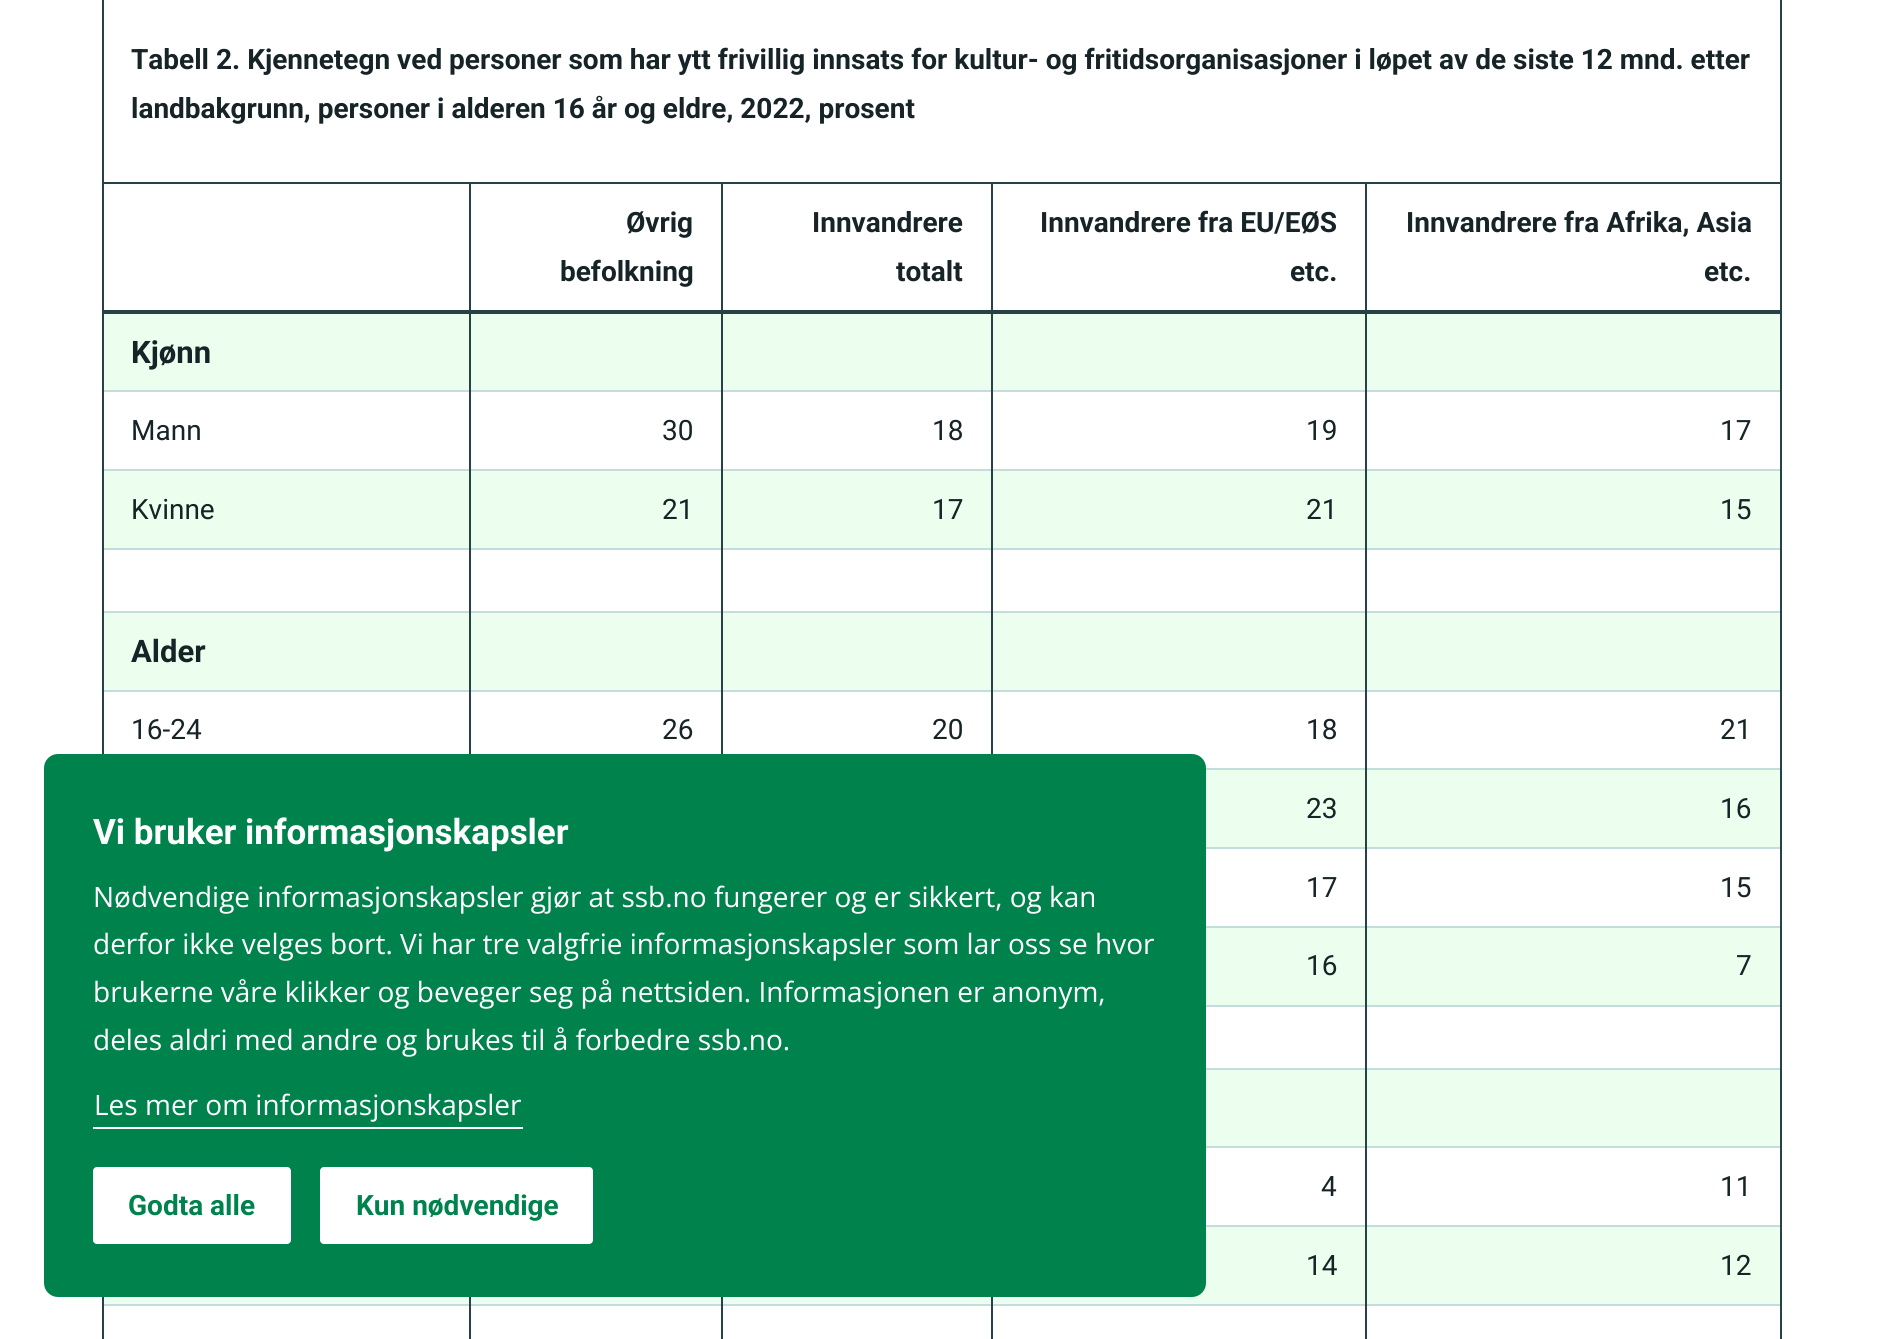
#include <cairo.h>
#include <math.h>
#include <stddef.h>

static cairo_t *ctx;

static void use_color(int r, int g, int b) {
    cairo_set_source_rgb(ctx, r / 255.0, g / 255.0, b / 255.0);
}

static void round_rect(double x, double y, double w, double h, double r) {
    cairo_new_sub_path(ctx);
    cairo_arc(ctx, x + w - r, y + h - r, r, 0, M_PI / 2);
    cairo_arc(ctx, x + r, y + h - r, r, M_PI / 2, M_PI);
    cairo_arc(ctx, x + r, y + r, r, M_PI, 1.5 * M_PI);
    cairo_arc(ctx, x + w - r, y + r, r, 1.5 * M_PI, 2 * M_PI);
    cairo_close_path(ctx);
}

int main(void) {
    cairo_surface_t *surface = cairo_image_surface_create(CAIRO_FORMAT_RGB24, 1882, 1339);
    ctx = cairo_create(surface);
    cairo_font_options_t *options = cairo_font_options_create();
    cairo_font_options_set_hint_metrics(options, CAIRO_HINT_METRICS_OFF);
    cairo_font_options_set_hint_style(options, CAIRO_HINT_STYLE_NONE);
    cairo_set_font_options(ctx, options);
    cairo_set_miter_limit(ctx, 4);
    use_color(255, 255, 255);
    cairo_paint(ctx);
    use_color(39, 66, 71);
    cairo_rectangle(ctx, 1780, 0, 2, 390);
    cairo_fill(ctx);
    cairo_rectangle(ctx, 102, 0, 2, 390);
    cairo_fill(ctx);
    cairo_select_font_face(ctx, "Roboto", CAIRO_FONT_SLANT_NORMAL, CAIRO_FONT_WEIGHT_BOLD);
    cairo_set_font_size(ctx, 28);
    use_color(22, 35, 39);
    cairo_move_to(ctx, 131, 69);
    cairo_show_text(ctx, "Tabell 2. Kjennetegn ved personer som har ytt frivillig innsats for kultur- og fritidsorganisasjoner i løpet av de siste 12 mnd. etter");
    cairo_move_to(ctx, 131, 118);
    cairo_show_text(ctx, "landbakgrunn, personer i alderen 16 år og eldre, 2022, prosent");
    use_color(39, 66, 71);
    cairo_rectangle(ctx, 1365, 182, 417, 2);
    cairo_fill(ctx);
    use_color(236, 254, 237);
    cairo_rectangle(ctx, 104, 314, 1676, 76);
    cairo_fill(ctx);
    use_color(195, 220, 220);
    cairo_rectangle(ctx, 102, 390, 1680, 2);
    cairo_fill(ctx);
    use_color(236, 254, 237);
    cairo_rectangle(ctx, 104, 471, 1676, 77);
    cairo_fill(ctx);
    use_color(195, 220, 220);
    cairo_rectangle(ctx, 102, 469, 1680, 2);
    cairo_fill(ctx);
    cairo_rectangle(ctx, 102, 548, 1680, 2);
    cairo_fill(ctx);
    cairo_rectangle(ctx, 102, 611, 1680, 2);
    cairo_fill(ctx);
    use_color(236, 254, 237);
    cairo_rectangle(ctx, 104, 613, 1676, 77);
    cairo_fill(ctx);
    use_color(195, 220, 220);
    cairo_rectangle(ctx, 102, 690, 1680, 2);
    cairo_fill(ctx);
    use_color(236, 254, 237);
    cairo_rectangle(ctx, 1206, 770, 574, 77);
    cairo_fill(ctx);
    use_color(195, 220, 220);
    cairo_rectangle(ctx, 1206, 768, 576, 2);
    cairo_fill(ctx);
    cairo_rectangle(ctx, 1206, 847, 576, 2);
    cairo_fill(ctx);
    use_color(236, 254, 237);
    cairo_rectangle(ctx, 1206, 928, 574, 77);
    cairo_fill(ctx);
    use_color(195, 220, 220);
    cairo_rectangle(ctx, 1206, 926, 576, 2);
    cairo_fill(ctx);
    cairo_rectangle(ctx, 1206, 1005, 576, 2);
    cairo_fill(ctx);
    cairo_rectangle(ctx, 1206, 1068, 576, 2);
    cairo_fill(ctx);
    use_color(236, 254, 237);
    cairo_rectangle(ctx, 1206, 1070, 574, 76);
    cairo_fill(ctx);
    use_color(195, 220, 220);
    cairo_rectangle(ctx, 1206, 1146, 576, 2);
    cairo_fill(ctx);
    use_color(236, 254, 237);
    cairo_rectangle(ctx, 104, 1227, 1676, 77);
    cairo_fill(ctx);
    use_color(195, 220, 220);
    cairo_rectangle(ctx, 1206, 1225, 576, 2);
    cairo_fill(ctx);
    cairo_rectangle(ctx, 102, 1304, 1680, 2);
    cairo_fill(ctx);
    use_color(39, 66, 71);
    cairo_rectangle(ctx, 1365, 1304, 2, 35);
    cairo_fill(ctx);
    cairo_rectangle(ctx, 1365, 1225, 2, 81);
    cairo_fill(ctx);
    cairo_rectangle(ctx, 1365, 1146, 2, 81);
    cairo_fill(ctx);
    cairo_rectangle(ctx, 1365, 1068, 2, 80);
    cairo_fill(ctx);
    cairo_rectangle(ctx, 1365, 1005, 2, 64);
    cairo_fill(ctx);
    cairo_rectangle(ctx, 1365, 926, 2, 80);
    cairo_fill(ctx);
    cairo_rectangle(ctx, 1365, 847, 2, 81);
    cairo_fill(ctx);
    cairo_rectangle(ctx, 1365, 768, 2, 81);
    cairo_fill(ctx);
    cairo_rectangle(ctx, 1365, 690, 2, 80);
    cairo_fill(ctx);
    cairo_rectangle(ctx, 1365, 611, 2, 80);
    cairo_fill(ctx);
    cairo_rectangle(ctx, 1365, 548, 2, 65);
    cairo_fill(ctx);
    cairo_rectangle(ctx, 1365, 469, 2, 81);
    cairo_fill(ctx);
    cairo_rectangle(ctx, 1365, 312, 2, 159);
    cairo_fill(ctx);
    cairo_rectangle(ctx, 1365, 182, 2, 131);
    cairo_fill(ctx);
    cairo_rectangle(ctx, 991, 182, 376, 2);
    cairo_fill(ctx);
    cairo_rectangle(ctx, 991, 690, 2, 64);
    cairo_fill(ctx);
    cairo_rectangle(ctx, 991, 611, 2, 80);
    cairo_fill(ctx);
    cairo_rectangle(ctx, 991, 548, 2, 65);
    cairo_fill(ctx);
    cairo_rectangle(ctx, 991, 469, 2, 81);
    cairo_fill(ctx);
    cairo_rectangle(ctx, 991, 312, 2, 159);
    cairo_fill(ctx);
    cairo_rectangle(ctx, 991, 182, 2, 131);
    cairo_fill(ctx);
    cairo_rectangle(ctx, 721, 182, 271, 2);
    cairo_fill(ctx);
    cairo_rectangle(ctx, 721, 690, 2, 64);
    cairo_fill(ctx);
    cairo_rectangle(ctx, 721, 611, 2, 80);
    cairo_fill(ctx);
    cairo_rectangle(ctx, 721, 548, 2, 65);
    cairo_fill(ctx);
    cairo_rectangle(ctx, 721, 469, 2, 81);
    cairo_fill(ctx);
    cairo_rectangle(ctx, 721, 312, 2, 159);
    cairo_fill(ctx);
    cairo_rectangle(ctx, 721, 182, 2, 131);
    cairo_fill(ctx);
    cairo_rectangle(ctx, 469, 182, 254, 2);
    cairo_fill(ctx);
    cairo_rectangle(ctx, 469, 690, 2, 64);
    cairo_fill(ctx);
    cairo_rectangle(ctx, 469, 611, 2, 80);
    cairo_fill(ctx);
    cairo_rectangle(ctx, 469, 548, 2, 65);
    cairo_fill(ctx);
    cairo_rectangle(ctx, 469, 469, 2, 81);
    cairo_fill(ctx);
    cairo_rectangle(ctx, 469, 312, 2, 159);
    cairo_fill(ctx);
    cairo_rectangle(ctx, 469, 182, 2, 131);
    cairo_fill(ctx);
    cairo_rectangle(ctx, 102, 310, 1680, 4);
    cairo_fill(ctx);
    cairo_rectangle(ctx, 102, 182, 369, 2);
    cairo_fill(ctx);
    use_color(22, 35, 39);
    cairo_move_to(ctx, 626, 232);
    cairo_show_text(ctx, "Øvrig");
    cairo_move_to(ctx, 560, 281);
    cairo_show_text(ctx, "befolkning");
    cairo_move_to(ctx, 812, 232);
    cairo_show_text(ctx, "Innvandrere");
    cairo_move_to(ctx, 896, 281);
    cairo_show_text(ctx, "totalt");
    cairo_move_to(ctx, 1040, 232);
    cairo_show_text(ctx, "Innvandrere fra EU/EØS");
    cairo_move_to(ctx, 1290, 281);
    cairo_show_text(ctx, "etc.");
    cairo_move_to(ctx, 1406, 232);
    cairo_show_text(ctx, "Innvandrere fra Afrika, Asia");
    cairo_move_to(ctx, 1704, 281);
    cairo_show_text(ctx, "etc.");
    cairo_set_font_size(ctx, 31);
    cairo_move_to(ctx, 131, 363);
    cairo_show_text(ctx, "Kjønn");
    use_color(39, 66, 71);
    cairo_rectangle(ctx, 102, 690, 2, 64);
    cairo_fill(ctx);
    cairo_rectangle(ctx, 102, 611, 2, 80);
    cairo_fill(ctx);
    cairo_rectangle(ctx, 102, 548, 2, 65);
    cairo_fill(ctx);
    cairo_rectangle(ctx, 102, 469, 2, 81);
    cairo_fill(ctx);
    cairo_rectangle(ctx, 102, 390, 2, 81);
    cairo_fill(ctx);
    cairo_select_font_face(ctx, "Roboto", CAIRO_FONT_SLANT_NORMAL, CAIRO_FONT_WEIGHT_NORMAL);
    cairo_set_font_size(ctx, 28);
    use_color(22, 35, 39);
    cairo_move_to(ctx, 131, 440);
    cairo_show_text(ctx, "Mann");
    cairo_move_to(ctx, 662, 440);
    cairo_show_text(ctx, "30");
    cairo_move_to(ctx, 932, 440);
    cairo_show_text(ctx, "18");
    cairo_move_to(ctx, 1306, 440);
    cairo_show_text(ctx, "19");
    use_color(39, 66, 71);
    cairo_rectangle(ctx, 1780, 1304, 2, 35);
    cairo_fill(ctx);
    cairo_rectangle(ctx, 1780, 1225, 2, 81);
    cairo_fill(ctx);
    cairo_rectangle(ctx, 1780, 1146, 2, 81);
    cairo_fill(ctx);
    cairo_rectangle(ctx, 1780, 1068, 2, 80);
    cairo_fill(ctx);
    cairo_rectangle(ctx, 1780, 1005, 2, 64);
    cairo_fill(ctx);
    cairo_rectangle(ctx, 1780, 926, 2, 80);
    cairo_fill(ctx);
    cairo_rectangle(ctx, 1780, 847, 2, 81);
    cairo_fill(ctx);
    cairo_rectangle(ctx, 1780, 768, 2, 81);
    cairo_fill(ctx);
    cairo_rectangle(ctx, 1780, 690, 2, 80);
    cairo_fill(ctx);
    cairo_rectangle(ctx, 1780, 611, 2, 80);
    cairo_fill(ctx);
    cairo_rectangle(ctx, 1780, 548, 2, 65);
    cairo_fill(ctx);
    cairo_rectangle(ctx, 1780, 469, 2, 81);
    cairo_fill(ctx);
    cairo_rectangle(ctx, 1780, 390, 2, 81);
    cairo_fill(ctx);
    use_color(22, 35, 39);
    cairo_move_to(ctx, 1720, 440);
    cairo_show_text(ctx, "17");
    cairo_move_to(ctx, 131, 519);
    cairo_show_text(ctx, "Kvinne");
    cairo_move_to(ctx, 662, 519);
    cairo_show_text(ctx, "21");
    cairo_move_to(ctx, 932, 519);
    cairo_show_text(ctx, "17");
    cairo_move_to(ctx, 1306, 519);
    cairo_show_text(ctx, "21");
    cairo_move_to(ctx, 1720, 519);
    cairo_show_text(ctx, "15");
    cairo_select_font_face(ctx, "Roboto", CAIRO_FONT_SLANT_NORMAL, CAIRO_FONT_WEIGHT_BOLD);
    cairo_set_font_size(ctx, 31);
    cairo_move_to(ctx, 131, 662);
    cairo_show_text(ctx, "Alder");
    cairo_select_font_face(ctx, "Roboto", CAIRO_FONT_SLANT_NORMAL, CAIRO_FONT_WEIGHT_NORMAL);
    cairo_set_font_size(ctx, 28);
    cairo_move_to(ctx, 131, 739);
    cairo_show_text(ctx, "16-24");
    cairo_move_to(ctx, 662, 739);
    cairo_show_text(ctx, "26");
    cairo_move_to(ctx, 932, 739);
    cairo_show_text(ctx, "20");
    cairo_move_to(ctx, 1306, 739);
    cairo_show_text(ctx, "18");
    cairo_move_to(ctx, 1720, 739);
    cairo_show_text(ctx, "21");
    cairo_move_to(ctx, 1306, 818);
    cairo_show_text(ctx, "23");
    cairo_move_to(ctx, 1720, 818);
    cairo_show_text(ctx, "16");
    cairo_move_to(ctx, 1306, 897);
    cairo_show_text(ctx, "17");
    cairo_move_to(ctx, 1720, 897);
    cairo_show_text(ctx, "15");
    cairo_move_to(ctx, 1306, 975);
    cairo_show_text(ctx, "16");
    cairo_move_to(ctx, 1736, 975);
    cairo_show_text(ctx, "7");
    cairo_move_to(ctx, 1321, 1196);
    cairo_show_text(ctx, "4");
    cairo_move_to(ctx, 1720, 1196);
    cairo_show_text(ctx, "11");
    cairo_move_to(ctx, 1306, 1275);
    cairo_show_text(ctx, "14");
    cairo_move_to(ctx, 1720, 1275);
    cairo_show_text(ctx, "12");
    use_color(39, 66, 71);
    cairo_rectangle(ctx, 469, 1297, 2, 42);
    cairo_fill(ctx);
    cairo_rectangle(ctx, 102, 1297, 2, 42);
    cairo_fill(ctx);
    cairo_rectangle(ctx, 721, 1297, 2, 42);
    cairo_fill(ctx);
    cairo_rectangle(ctx, 991, 1297, 2, 42);
    cairo_fill(ctx);
    use_color(0, 130, 77);
    round_rect(44, 754, 1162, 543, 14);
    cairo_fill(ctx);
    cairo_select_font_face(ctx, "Roboto", CAIRO_FONT_SLANT_NORMAL, CAIRO_FONT_WEIGHT_BOLD);
    cairo_set_font_size(ctx, 35);
    use_color(255, 255, 255);
    cairo_move_to(ctx, 93, 844);
    cairo_show_text(ctx, "Vi bruker informasjonskapsler");
    cairo_select_font_face(ctx, "Open Sans", CAIRO_FONT_SLANT_NORMAL, CAIRO_FONT_WEIGHT_NORMAL);
    cairo_set_font_size(ctx, 28);
    cairo_move_to(ctx, 93, 907);
    cairo_show_text(ctx, "Nødvendige informasjonskapsler gjør at ssb.no fungerer og er sikkert, og kan");
    cairo_move_to(ctx, 93, 954);
    cairo_show_text(ctx, "derfor ikke velges bort. Vi har tre valgfrie informasjonskapsler som lar oss se hvor");
    cairo_move_to(ctx, 93, 1002);
    cairo_show_text(ctx, "brukerne våre klikker og beveger seg på nettsiden. Informasjonen er anonym,");
    cairo_move_to(ctx, 93, 1050);
    cairo_show_text(ctx, "deles aldri med andre og brukes til å forbedre ssb.no.");
    cairo_move_to(ctx, 94, 1115);
    cairo_show_text(ctx, "Les mer om informasjonskapsler");
    cairo_rectangle(ctx, 93, 1127, 430, 2);
    cairo_fill(ctx);
    round_rect(93, 1167, 198, 77, 4);
    cairo_fill(ctx);
    cairo_select_font_face(ctx, "Roboto", CAIRO_FONT_SLANT_NORMAL, CAIRO_FONT_WEIGHT_BOLD);
    use_color(0, 130, 77);
    cairo_move_to(ctx, 128, 1215);
    cairo_show_text(ctx, "Godta alle");
    use_color(255, 255, 255);
    round_rect(320, 1167, 273, 77, 4);
    cairo_fill(ctx);
    use_color(0, 130, 77);
    cairo_move_to(ctx, 356, 1215);
    cairo_show_text(ctx, "Kun nødvendige");
    cairo_surface_write_to_png(surface, "result.png");
    cairo_font_options_destroy(options);
    cairo_destroy(ctx);
    cairo_surface_destroy(surface);
    return 0;
}
